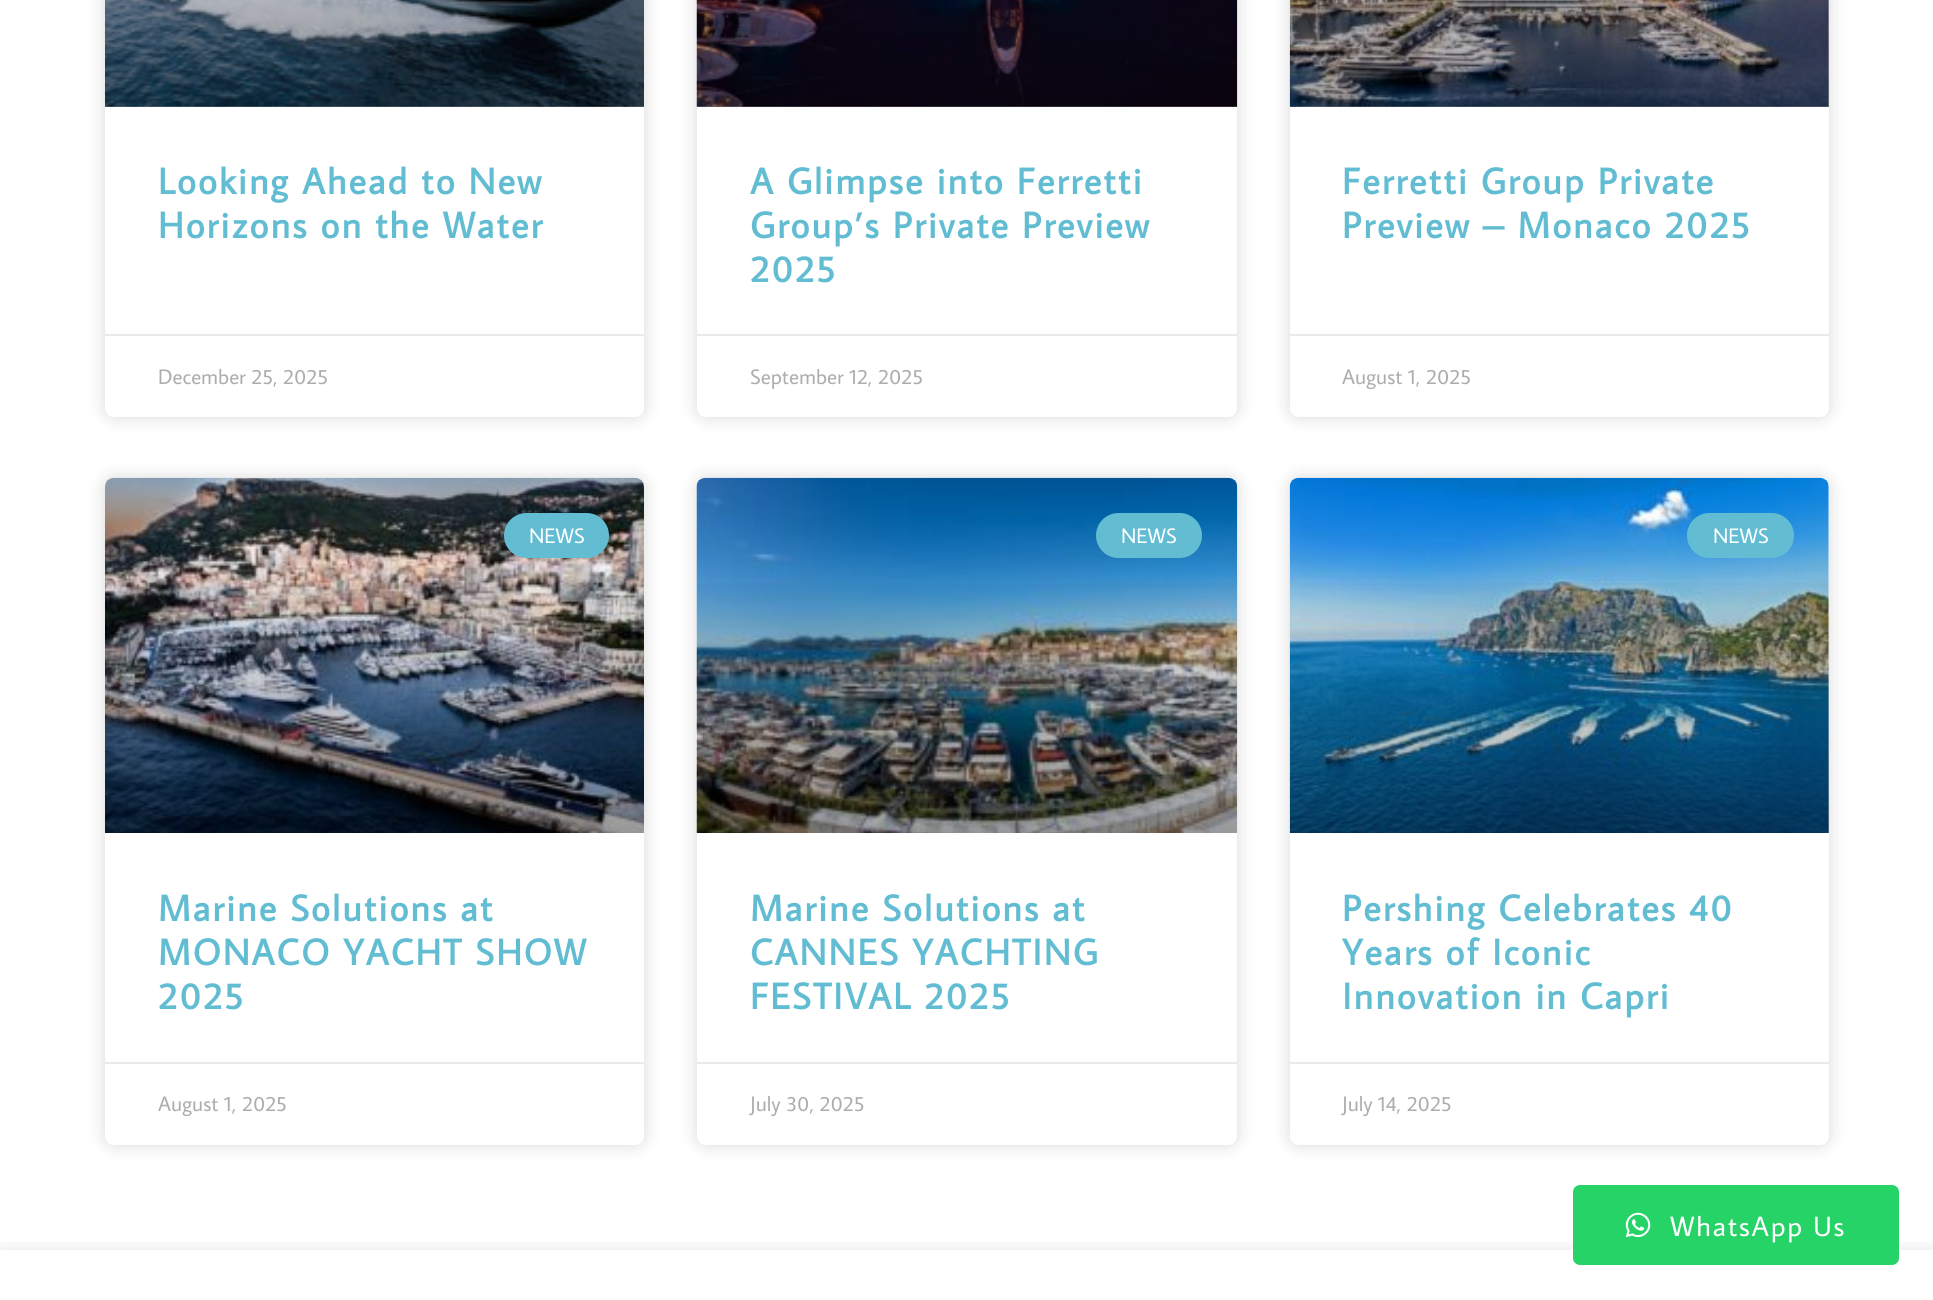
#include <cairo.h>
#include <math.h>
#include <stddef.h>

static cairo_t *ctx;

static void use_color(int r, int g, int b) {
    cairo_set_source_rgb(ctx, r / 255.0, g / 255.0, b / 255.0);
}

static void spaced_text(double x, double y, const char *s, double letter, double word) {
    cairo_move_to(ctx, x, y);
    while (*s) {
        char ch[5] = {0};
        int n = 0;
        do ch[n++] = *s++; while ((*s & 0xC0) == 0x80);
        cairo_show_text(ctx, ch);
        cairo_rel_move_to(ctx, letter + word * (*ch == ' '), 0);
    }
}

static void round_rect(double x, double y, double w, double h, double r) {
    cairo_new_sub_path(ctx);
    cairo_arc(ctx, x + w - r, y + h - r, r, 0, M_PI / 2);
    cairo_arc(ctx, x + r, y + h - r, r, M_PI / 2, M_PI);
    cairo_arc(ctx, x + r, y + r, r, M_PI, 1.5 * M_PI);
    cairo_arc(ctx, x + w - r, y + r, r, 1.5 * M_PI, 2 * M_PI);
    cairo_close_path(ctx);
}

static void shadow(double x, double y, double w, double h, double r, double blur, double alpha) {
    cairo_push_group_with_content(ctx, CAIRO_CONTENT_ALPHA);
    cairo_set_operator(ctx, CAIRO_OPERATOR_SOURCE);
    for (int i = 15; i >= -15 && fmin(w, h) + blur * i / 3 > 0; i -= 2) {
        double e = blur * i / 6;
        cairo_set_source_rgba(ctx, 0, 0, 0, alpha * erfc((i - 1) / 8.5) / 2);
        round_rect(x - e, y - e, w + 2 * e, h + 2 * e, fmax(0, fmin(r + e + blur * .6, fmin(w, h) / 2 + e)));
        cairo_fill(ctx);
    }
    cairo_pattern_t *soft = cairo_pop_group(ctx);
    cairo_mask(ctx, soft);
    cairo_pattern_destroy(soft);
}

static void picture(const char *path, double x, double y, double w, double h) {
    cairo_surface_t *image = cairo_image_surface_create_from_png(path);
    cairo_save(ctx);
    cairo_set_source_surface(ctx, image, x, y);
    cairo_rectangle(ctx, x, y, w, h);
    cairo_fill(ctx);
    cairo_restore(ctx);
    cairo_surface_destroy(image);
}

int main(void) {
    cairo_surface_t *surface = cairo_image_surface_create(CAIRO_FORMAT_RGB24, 1933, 1300);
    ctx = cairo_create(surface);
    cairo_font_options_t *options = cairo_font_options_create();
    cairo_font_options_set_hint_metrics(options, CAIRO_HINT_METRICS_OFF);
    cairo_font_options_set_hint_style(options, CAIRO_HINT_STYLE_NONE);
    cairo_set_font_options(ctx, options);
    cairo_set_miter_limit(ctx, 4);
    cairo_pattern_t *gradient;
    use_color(255, 255, 255);
    cairo_paint(ctx);
    use_color(0, 0, 0);
    shadow(105, -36, 539, 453, 9, 9, 0.15);
    use_color(255, 255, 255);
    round_rect(105, -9, 539, 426, 9);
    cairo_fill(ctx);
    picture("img1.png", 105, 0, 539, 107);
    gradient = cairo_pattern_create_linear(375, 107, 375, -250);
    cairo_pattern_add_color_stop_rgba(gradient, 0, 0, 0, 0, 0.35);
    cairo_pattern_add_color_stop_rgba(gradient, 0.75, 0, 0, 0, 0);
    cairo_set_source(ctx, gradient);
    cairo_pattern_destroy(gradient);
    cairo_rectangle(ctx, 105, 0, 539, 107);
    cairo_fill(ctx);
    cairo_select_font_face(ctx, "Average Sans", CAIRO_FONT_SLANT_NORMAL, CAIRO_FONT_WEIGHT_BOLD);
    cairo_set_font_size(ctx, 36.75);
    use_color(98, 189, 211);
    spaced_text(158, 194, "Looking Ahead to New", 2.1, 0);
    spaced_text(158, 238, "Horizons on the Water", 2.1, 0);
    use_color(234, 234, 234);
    cairo_rectangle(ctx, 105, 334, 539, 2);
    cairo_fill(ctx);
    cairo_select_font_face(ctx, "Average Sans", CAIRO_FONT_SLANT_NORMAL, CAIRO_FONT_WEIGHT_NORMAL);
    cairo_set_font_size(ctx, 21);
    use_color(173, 173, 173);
    cairo_move_to(ctx, 158, 384);
    cairo_show_text(ctx, "December 25, 2025");
    use_color(0, 0, 0);
    shadow(697, -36, 540, 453, 9, 9, 0.15);
    use_color(255, 255, 255);
    round_rect(697, -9, 540, 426, 9);
    cairo_fill(ctx);
    picture("img2.png", 696, 0, 542, 107);
    gradient = cairo_pattern_create_linear(967, 107, 967, -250);
    cairo_pattern_add_color_stop_rgba(gradient, 0, 0, 0, 0, 0.35);
    cairo_pattern_add_color_stop_rgba(gradient, 0.75, 0, 0, 0, 0);
    cairo_set_source(ctx, gradient);
    cairo_pattern_destroy(gradient);
    cairo_rectangle(ctx, 697, 0, 540, 107);
    cairo_fill(ctx);
    cairo_select_font_face(ctx, "Average Sans", CAIRO_FONT_SLANT_NORMAL, CAIRO_FONT_WEIGHT_BOLD);
    cairo_set_font_size(ctx, 36.75);
    use_color(98, 189, 211);
    spaced_text(750, 194, "A Glimpse into Ferretti", 2.1, 0);
    spaced_text(750, 238, "Group’s Private Preview", 2.1, 0);
    spaced_text(750, 282, "2025", 2.1, 0);
    use_color(234, 234, 234);
    cairo_rectangle(ctx, 697, 334, 540, 2);
    cairo_fill(ctx);
    cairo_select_font_face(ctx, "Average Sans", CAIRO_FONT_SLANT_NORMAL, CAIRO_FONT_WEIGHT_NORMAL);
    cairo_set_font_size(ctx, 21);
    use_color(173, 173, 173);
    cairo_move_to(ctx, 750, 384);
    cairo_show_text(ctx, "September 12, 2025");
    use_color(0, 0, 0);
    shadow(1290, -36, 539, 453, 9, 9, 0.15);
    use_color(255, 255, 255);
    round_rect(1290, -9, 539, 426, 9);
    cairo_fill(ctx);
    picture("img3.png", 1289, 0, 540, 107);
    gradient = cairo_pattern_create_linear(1559, 107, 1559, -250);
    cairo_pattern_add_color_stop_rgba(gradient, 0, 0, 0, 0, 0.35);
    cairo_pattern_add_color_stop_rgba(gradient, 0.75, 0, 0, 0, 0);
    cairo_set_source(ctx, gradient);
    cairo_pattern_destroy(gradient);
    cairo_rectangle(ctx, 1290, 0, 539, 107);
    cairo_fill(ctx);
    cairo_select_font_face(ctx, "Average Sans", CAIRO_FONT_SLANT_NORMAL, CAIRO_FONT_WEIGHT_BOLD);
    cairo_set_font_size(ctx, 36.75);
    use_color(98, 189, 211);
    spaced_text(1342, 194, "Ferretti Group Private", 2.1, 0);
    spaced_text(1342, 238, "Preview – Monaco 2025", 2.1, 0);
    use_color(234, 234, 234);
    cairo_rectangle(ctx, 1290, 334, 539, 2);
    cairo_fill(ctx);
    cairo_select_font_face(ctx, "Average Sans", CAIRO_FONT_SLANT_NORMAL, CAIRO_FONT_WEIGHT_NORMAL);
    cairo_set_font_size(ctx, 21);
    use_color(173, 173, 173);
    cairo_move_to(ctx, 1342, 384);
    cairo_show_text(ctx, "August 1, 2025");
    use_color(0, 0, 0);
    shadow(105, 478, 539, 667, 9, 9, 0.15);
    use_color(255, 255, 255);
    round_rect(105, 478, 539, 667, 9);
    cairo_fill(ctx);
    picture("img4.png", 105, 477, 539, 356);
    gradient = cairo_pattern_create_linear(375, 833, 375, 478);
    cairo_pattern_add_color_stop_rgba(gradient, 0, 0, 0, 0, 0.35);
    cairo_pattern_add_color_stop_rgba(gradient, 0.75, 0, 0, 0, 0);
    cairo_set_source(ctx, gradient);
    cairo_pattern_destroy(gradient);
    cairo_rectangle(ctx, 105, 583, 539, 250);
    cairo_fill(ctx);
    use_color(98, 189, 211);
    round_rect(504, 513, 105, 45, 22.5);
    cairo_fill(ctx);
    use_color(255, 255, 255);
    cairo_move_to(ctx, 529, 543);
    cairo_show_text(ctx, "NEWS");
    cairo_select_font_face(ctx, "Average Sans", CAIRO_FONT_SLANT_NORMAL, CAIRO_FONT_WEIGHT_BOLD);
    cairo_set_font_size(ctx, 36.75);
    use_color(98, 189, 211);
    spaced_text(158, 921, "Marine Solutions at", 2.1, 0);
    spaced_text(158, 965, "MONACO YACHT SHOW", 2.1, 0);
    spaced_text(158, 1009, "2025", 2.1, 0);
    use_color(234, 234, 234);
    cairo_rectangle(ctx, 105, 1062, 539, 2);
    cairo_fill(ctx);
    cairo_select_font_face(ctx, "Average Sans", CAIRO_FONT_SLANT_NORMAL, CAIRO_FONT_WEIGHT_NORMAL);
    cairo_set_font_size(ctx, 21);
    use_color(173, 173, 173);
    cairo_move_to(ctx, 158, 1111);
    cairo_show_text(ctx, "August 1, 2025");
    use_color(0, 0, 0);
    shadow(697, 478, 540, 667, 9, 9, 0.15);
    use_color(255, 255, 255);
    round_rect(697, 478, 540, 667, 9);
    cairo_fill(ctx);
    picture("img5.png", 696, 477, 542, 356);
    gradient = cairo_pattern_create_linear(967, 833, 967, 478);
    cairo_pattern_add_color_stop_rgba(gradient, 0, 0, 0, 0, 0.35);
    cairo_pattern_add_color_stop_rgba(gradient, 0.75, 0, 0, 0, 0);
    cairo_set_source(ctx, gradient);
    cairo_pattern_destroy(gradient);
    cairo_rectangle(ctx, 697, 583, 540, 250);
    cairo_fill(ctx);
    use_color(98, 189, 211);
    round_rect(1096, 513, 106, 45, 22.5);
    cairo_fill(ctx);
    use_color(255, 255, 255);
    cairo_move_to(ctx, 1121, 543);
    cairo_show_text(ctx, "NEWS");
    cairo_select_font_face(ctx, "Average Sans", CAIRO_FONT_SLANT_NORMAL, CAIRO_FONT_WEIGHT_BOLD);
    cairo_set_font_size(ctx, 36.75);
    use_color(98, 189, 211);
    spaced_text(750, 921, "Marine Solutions at", 2.1, 0);
    spaced_text(750, 965, "CANNES YACHTING", 2.1, 0);
    spaced_text(750, 1009, "FESTIVAL 2025", 2.1, 0);
    use_color(234, 234, 234);
    cairo_rectangle(ctx, 697, 1062, 540, 2);
    cairo_fill(ctx);
    cairo_select_font_face(ctx, "Average Sans", CAIRO_FONT_SLANT_NORMAL, CAIRO_FONT_WEIGHT_NORMAL);
    cairo_set_font_size(ctx, 21);
    use_color(173, 173, 173);
    cairo_move_to(ctx, 750, 1111);
    cairo_show_text(ctx, "July 30, 2025");
    use_color(0, 0, 0);
    shadow(1290, 478, 539, 667, 9, 9, 0.15);
    use_color(255, 255, 255);
    round_rect(1290, 478, 539, 667, 9);
    cairo_fill(ctx);
    picture("img6.png", 1289, 477, 540, 356);
    gradient = cairo_pattern_create_linear(1559, 833, 1559, 478);
    cairo_pattern_add_color_stop_rgba(gradient, 0, 0, 0, 0, 0.35);
    cairo_pattern_add_color_stop_rgba(gradient, 0.75, 0, 0, 0, 0);
    cairo_set_source(ctx, gradient);
    cairo_pattern_destroy(gradient);
    cairo_rectangle(ctx, 1290, 583, 539, 250);
    cairo_fill(ctx);
    use_color(98, 189, 211);
    round_rect(1687, 513, 107, 45, 22.5);
    cairo_fill(ctx);
    use_color(255, 255, 255);
    cairo_move_to(ctx, 1713, 543);
    cairo_show_text(ctx, "NEWS");
    cairo_select_font_face(ctx, "Average Sans", CAIRO_FONT_SLANT_NORMAL, CAIRO_FONT_WEIGHT_BOLD);
    cairo_set_font_size(ctx, 36.75);
    use_color(98, 189, 211);
    spaced_text(1342, 921, "Pershing Celebrates 40", 2.1, 0);
    spaced_text(1342, 965, "Years of Iconic", 2.1, 0);
    spaced_text(1342, 1009, "Innovation in Capri", 2.1, 0);
    use_color(234, 234, 234);
    cairo_rectangle(ctx, 1290, 1062, 539, 2);
    cairo_fill(ctx);
    cairo_select_font_face(ctx, "Average Sans", CAIRO_FONT_SLANT_NORMAL, CAIRO_FONT_WEIGHT_NORMAL);
    cairo_set_font_size(ctx, 21);
    use_color(173, 173, 173);
    cairo_move_to(ctx, 1342, 1111);
    cairo_show_text(ctx, "July 14, 2025");
    cairo_save(ctx);
    cairo_rectangle(ctx, 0, 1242, 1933, 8);
    cairo_clip(ctx);
    use_color(0, 0, 0);
    shadow(0, 1250, 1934, 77, 0, 9, 0.1);
    cairo_restore(ctx);
    use_color(37, 211, 102);
    round_rect(1573, 1185, 326, 80, 7);
    cairo_fill(ctx);
    picture("img7.png", 1625, 1212, 26, 26);
    cairo_set_font_size(ctx, 28);
    use_color(255, 255, 255);
    spaced_text(1670, 1236, "WhatsApp Us", 1.75, 0);
    cairo_surface_write_to_png(surface, "result.png");
    cairo_font_options_destroy(options);
    cairo_destroy(ctx);
    cairo_surface_destroy(surface);
    return 0;
}
